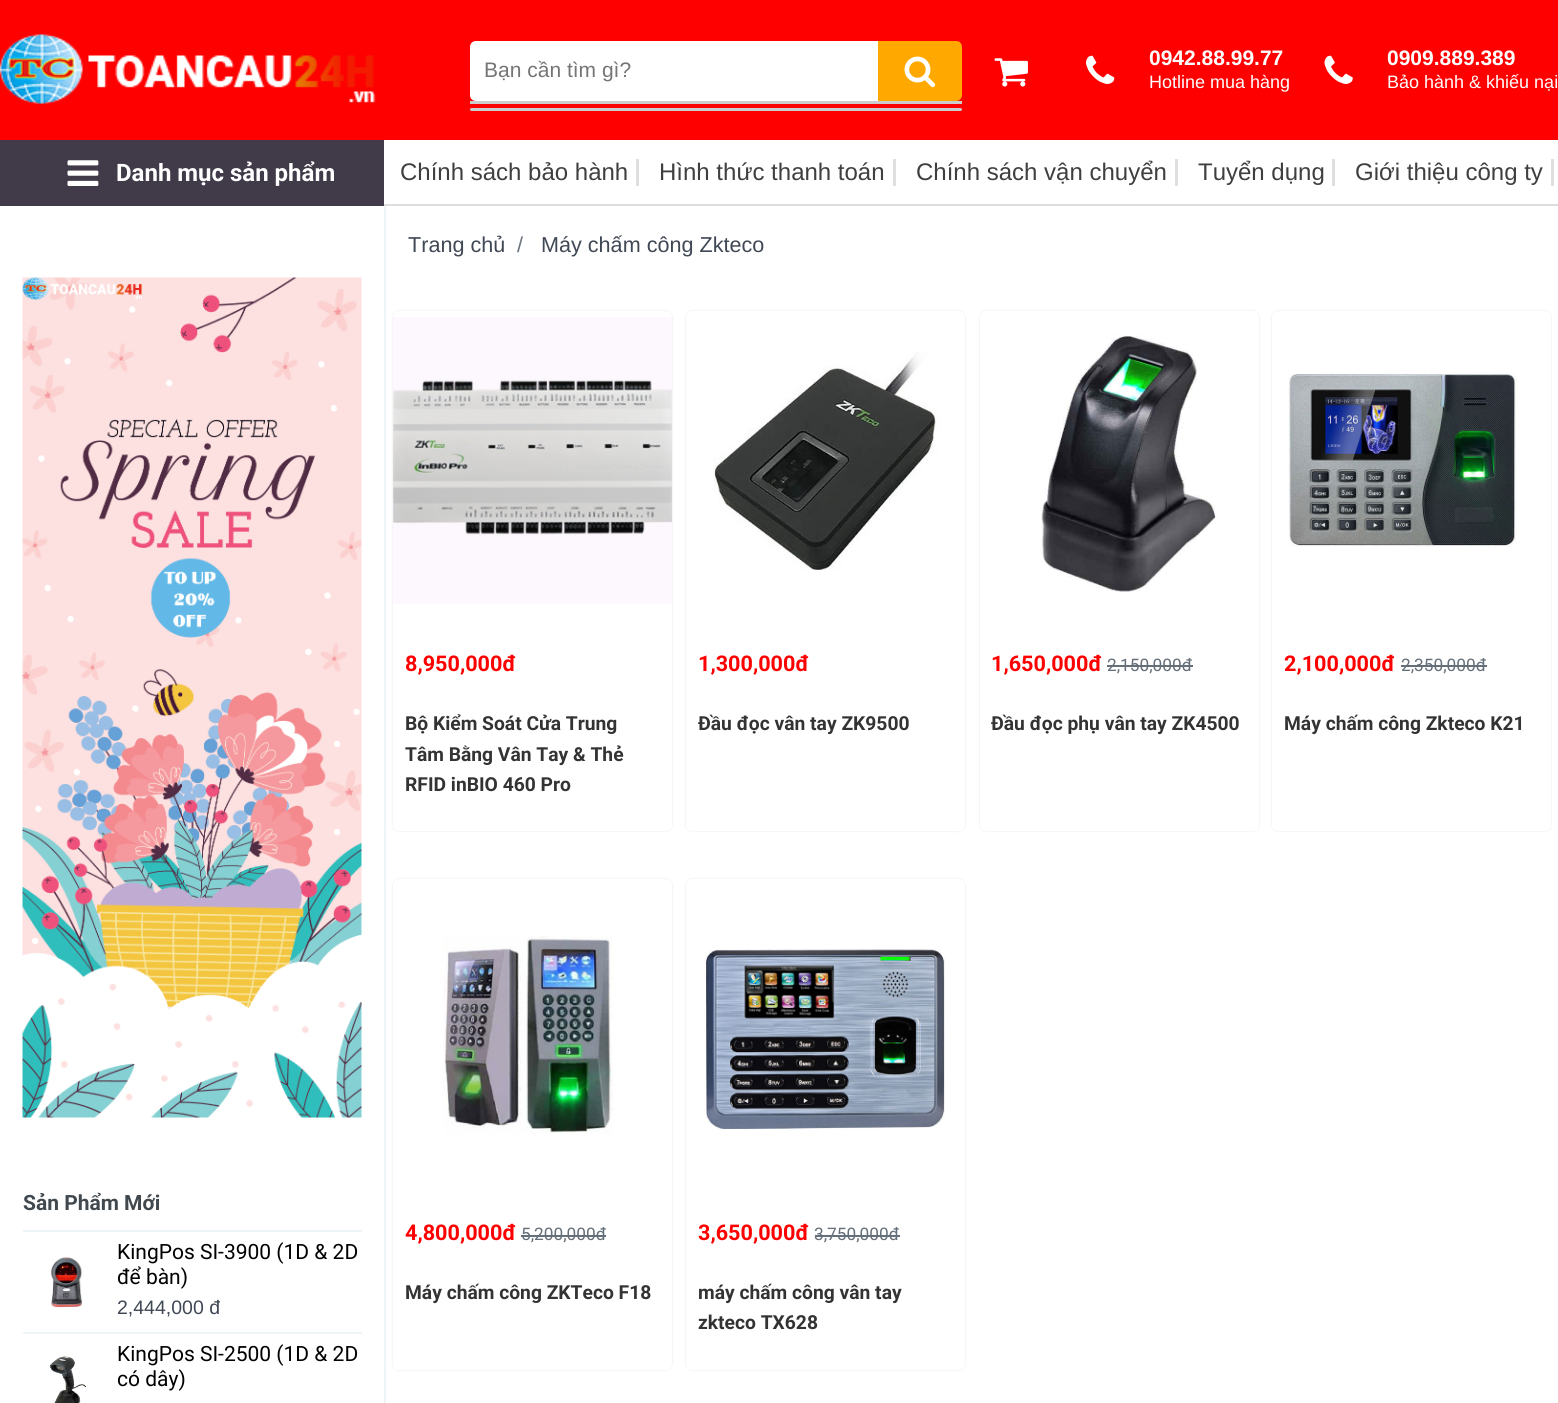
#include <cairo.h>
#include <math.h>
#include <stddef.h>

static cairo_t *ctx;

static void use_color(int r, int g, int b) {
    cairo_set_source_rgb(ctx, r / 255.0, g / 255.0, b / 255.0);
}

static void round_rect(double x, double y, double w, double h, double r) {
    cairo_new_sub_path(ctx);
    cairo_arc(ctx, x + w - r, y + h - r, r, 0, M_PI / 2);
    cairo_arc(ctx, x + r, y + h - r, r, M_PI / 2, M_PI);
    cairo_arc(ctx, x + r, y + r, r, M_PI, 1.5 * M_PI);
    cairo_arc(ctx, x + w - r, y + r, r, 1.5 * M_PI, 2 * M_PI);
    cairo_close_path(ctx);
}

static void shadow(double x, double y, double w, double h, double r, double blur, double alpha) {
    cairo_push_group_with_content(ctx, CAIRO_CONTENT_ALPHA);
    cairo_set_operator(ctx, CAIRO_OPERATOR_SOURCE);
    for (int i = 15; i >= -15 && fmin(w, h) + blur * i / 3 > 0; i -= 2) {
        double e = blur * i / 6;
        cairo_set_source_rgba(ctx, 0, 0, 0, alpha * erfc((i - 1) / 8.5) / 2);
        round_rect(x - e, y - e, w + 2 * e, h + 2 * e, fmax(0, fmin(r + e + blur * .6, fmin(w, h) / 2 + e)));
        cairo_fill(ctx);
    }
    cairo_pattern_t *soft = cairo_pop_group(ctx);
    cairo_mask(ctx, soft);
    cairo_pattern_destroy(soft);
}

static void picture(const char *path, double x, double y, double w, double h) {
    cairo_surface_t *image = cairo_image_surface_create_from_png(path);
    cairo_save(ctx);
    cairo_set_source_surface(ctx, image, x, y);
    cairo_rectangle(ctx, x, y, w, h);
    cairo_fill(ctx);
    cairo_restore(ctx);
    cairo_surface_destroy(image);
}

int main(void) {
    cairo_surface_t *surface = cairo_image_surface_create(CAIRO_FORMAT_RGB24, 1558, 1403);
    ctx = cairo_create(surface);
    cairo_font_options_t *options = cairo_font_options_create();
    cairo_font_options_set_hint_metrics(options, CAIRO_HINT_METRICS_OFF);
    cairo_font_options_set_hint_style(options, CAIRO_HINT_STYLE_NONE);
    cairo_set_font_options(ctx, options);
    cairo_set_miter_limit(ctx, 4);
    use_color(255, 255, 255);
    cairo_paint(ctx);
    use_color(255, 0, 0);
    cairo_rectangle(ctx, 0, 0, 1558, 140);
    cairo_fill(ctx);
    picture("img1.png", 0, 34, 376, 70);
    use_color(255, 255, 255);
    cairo_new_path(ctx);
    cairo_move_to(ctx, 476, 41);
    cairo_line_to(ctx, 878, 41);
    cairo_line_to(ctx, 878, 101);
    cairo_line_to(ctx, 476, 101);
    cairo_curve_to(ctx, 472.5, 101, 470, 98.5, 470, 95);
    cairo_line_to(ctx, 470, 47);
    cairo_curve_to(ctx, 470, 43.5, 472.5, 41, 476, 41);
    cairo_close_path(ctx);
    cairo_fill(ctx);
    cairo_select_font_face(ctx, "Liberation Sans", CAIRO_FONT_SLANT_NORMAL, CAIRO_FONT_WEIGHT_NORMAL);
    cairo_set_font_size(ctx, 21);
    use_color(117, 117, 117);
    cairo_move_to(ctx, 484, 77);
    cairo_show_text(ctx, "Bạn cần tìm gì?");
    use_color(255, 168, 0);
    cairo_new_path(ctx);
    cairo_move_to(ctx, 878, 41);
    cairo_line_to(ctx, 956, 41);
    cairo_curve_to(ctx, 959.5, 41, 962, 43.5, 962, 47);
    cairo_line_to(ctx, 962, 95);
    cairo_curve_to(ctx, 962, 98.5, 959.5, 101, 956, 101);
    cairo_line_to(ctx, 878, 101);
    cairo_close_path(ctx);
    cairo_fill(ctx);
    picture("img2.png", 904, 56, 32, 32);
    use_color(204, 204, 204);
    cairo_rectangle(ctx, 470, 101, 492, 3);
    cairo_fill(ctx);
    round_rect(470, 108, 492, 3, 1.5);
    cairo_fill(ctx);
    picture("img3.png", 994, 58, 34, 29);
    picture("img4.png", 1086, 55, 29, 29);
    cairo_select_font_face(ctx, "Liberation Sans", CAIRO_FONT_SLANT_NORMAL, CAIRO_FONT_WEIGHT_BOLD);
    use_color(255, 255, 255);
    cairo_move_to(ctx, 1149, 65);
    cairo_show_text(ctx, "0942.88.99.77");
    cairo_select_font_face(ctx, "Liberation Sans", CAIRO_FONT_SLANT_NORMAL, CAIRO_FONT_WEIGHT_NORMAL);
    cairo_set_font_size(ctx, 18);
    cairo_move_to(ctx, 1149, 88);
    cairo_show_text(ctx, "Hotline mua hàng");
    picture("img5.png", 1324, 55, 29, 29);
    cairo_select_font_face(ctx, "Liberation Sans", CAIRO_FONT_SLANT_NORMAL, CAIRO_FONT_WEIGHT_BOLD);
    cairo_set_font_size(ctx, 21);
    cairo_move_to(ctx, 1387, 65);
    cairo_show_text(ctx, "0909.889.389");
    cairo_select_font_face(ctx, "Liberation Sans", CAIRO_FONT_SLANT_NORMAL, CAIRO_FONT_WEIGHT_NORMAL);
    cairo_set_font_size(ctx, 18);
    cairo_move_to(ctx, 1387, 88);
    cairo_show_text(ctx, "Bảo hành & khiếu nại");
    use_color(221, 221, 221);
    cairo_rectangle(ctx, 384, 204, 1174, 2);
    cairo_fill(ctx);
    use_color(65, 59, 73);
    cairo_rectangle(ctx, 0, 140, 384, 66);
    cairo_fill(ctx);
    picture("img6.png", 67, 160, 32, 26);
    cairo_select_font_face(ctx, "Roboto", CAIRO_FONT_SLANT_NORMAL, CAIRO_FONT_WEIGHT_BOLD);
    cairo_set_font_size(ctx, 24);
    use_color(255, 255, 255);
    cairo_move_to(ctx, 116, 181);
    cairo_show_text(ctx, "Danh mục sản phẩm");
    cairo_select_font_face(ctx, "Liberation Sans", CAIRO_FONT_SLANT_NORMAL, CAIRO_FONT_WEIGHT_NORMAL);
    use_color(63, 63, 63);
    cairo_move_to(ctx, 400, 180);
    cairo_show_text(ctx, "Chính sách bảo hành");
    use_color(223, 223, 223);
    cairo_rectangle(ctx, 636, 159, 3, 27);
    cairo_fill(ctx);
    use_color(63, 63, 63);
    cairo_move_to(ctx, 659, 180);
    cairo_show_text(ctx, "Hình thức thanh toán");
    use_color(223, 223, 223);
    cairo_rectangle(ctx, 893, 159, 3, 27);
    cairo_fill(ctx);
    use_color(63, 63, 63);
    cairo_move_to(ctx, 916, 180);
    cairo_show_text(ctx, "Chính sách vận chuyển");
    use_color(223, 223, 223);
    cairo_rectangle(ctx, 1175, 159, 3, 27);
    cairo_fill(ctx);
    use_color(63, 63, 63);
    cairo_move_to(ctx, 1198, 180);
    cairo_show_text(ctx, "Tuyển dụng");
    use_color(223, 223, 223);
    cairo_rectangle(ctx, 1332, 159, 3, 27);
    cairo_fill(ctx);
    use_color(63, 63, 63);
    cairo_move_to(ctx, 1355, 180);
    cairo_show_text(ctx, "Giới thiệu công ty");
    use_color(223, 223, 223);
    cairo_rectangle(ctx, 1551, 159, 3, 27);
    cairo_fill(ctx);
    picture("img7.png", 22, 277, 340, 841);
    use_color(237, 244, 248);
    cairo_rectangle(ctx, 23, 1230, 339, 2);
    cairo_fill(ctx);
    cairo_select_font_face(ctx, "Roboto", CAIRO_FONT_SLANT_NORMAL, CAIRO_FONT_WEIGHT_BOLD);
    cairo_set_font_size(ctx, 21);
    use_color(65, 73, 79);
    cairo_move_to(ctx, 23, 1210);
    cairo_show_text(ctx, "Sản Phẩm Mới");
    use_color(237, 244, 248);
    cairo_rectangle(ctx, 23, 1332, 339, 2);
    cairo_fill(ctx);
    picture("img8.png", 50, 1257, 33, 51);
    cairo_select_font_face(ctx, "Roboto", CAIRO_FONT_SLANT_NORMAL, CAIRO_FONT_WEIGHT_NORMAL);
    use_color(0, 0, 0);
    cairo_move_to(ctx, 117, 1259);
    cairo_show_text(ctx, "KingPos SI-3900 (1D & 2D");
    cairo_move_to(ctx, 117, 1284);
    cairo_show_text(ctx, "để bàn)");
    cairo_select_font_face(ctx, "Liberation Sans", CAIRO_FONT_SLANT_NORMAL, CAIRO_FONT_WEIGHT_NORMAL);
    cairo_set_font_size(ctx, 19.5);
    use_color(64, 72, 85);
    cairo_move_to(ctx, 117, 1314);
    cairo_show_text(ctx, "2,444,000 đ");
    picture("img9.png", 49, 1356, 37, 47);
    cairo_select_font_face(ctx, "Roboto", CAIRO_FONT_SLANT_NORMAL, CAIRO_FONT_WEIGHT_NORMAL);
    cairo_set_font_size(ctx, 21);
    use_color(0, 0, 0);
    cairo_move_to(ctx, 117, 1361);
    cairo_show_text(ctx, "KingPos SI-2500 (1D & 2D");
    cairo_move_to(ctx, 117, 1386);
    cairo_show_text(ctx, "có dây)");
    use_color(237, 244, 248);
    cairo_rectangle(ctx, 384, 206, 2, 1197);
    cairo_fill(ctx);
    cairo_select_font_face(ctx, "Liberation Sans", CAIRO_FONT_SLANT_NORMAL, CAIRO_FONT_WEIGHT_NORMAL);
    cairo_set_font_size(ctx, 21.6);
    use_color(64, 72, 85);
    cairo_move_to(ctx, 408, 252);
    cairo_show_text(ctx, "Trang chủ");
    use_color(108, 117, 125);
    cairo_move_to(ctx, 517, 252);
    cairo_show_text(ctx, "/");
    use_color(64, 72, 85);
    cairo_move_to(ctx, 541, 252);
    cairo_show_text(ctx, "Máy chấm công Zkteco");
    use_color(0, 0, 0);
    shadow(393, 311, 279, 520, 6, 1, 0.1);
    use_color(255, 255, 255);
    round_rect(393, 311, 279, 520, 6);
    cairo_fill(ctx);
    picture("img10.png", 393, 317, 279, 287);
    cairo_select_font_face(ctx, "Roboto", CAIRO_FONT_SLANT_NORMAL, CAIRO_FONT_WEIGHT_BOLD);
    use_color(255, 0, 0);
    cairo_move_to(ctx, 405, 671);
    cairo_show_text(ctx, "8,950,000đ");
    cairo_set_font_size(ctx, 19.25);
    use_color(51, 51, 51);
    cairo_move_to(ctx, 405, 730);
    cairo_show_text(ctx, "Bộ Kiểm Soát Cửa Trung");
    cairo_move_to(ctx, 405, 761);
    cairo_show_text(ctx, "Tâm Bằng Vân Tay & Thẻ");
    cairo_move_to(ctx, 405, 791);
    cairo_show_text(ctx, "RFID inBIO 460 Pro");
    use_color(0, 0, 0);
    shadow(686, 311, 279, 520, 6, 1, 0.1);
    use_color(255, 255, 255);
    round_rect(686, 311, 279, 520, 6);
    cairo_fill(ctx);
    picture("img11.png", 713, 352, 226, 218);
    cairo_set_font_size(ctx, 21.6);
    use_color(255, 0, 0);
    cairo_move_to(ctx, 698, 671);
    cairo_show_text(ctx, "1,300,000đ");
    cairo_set_font_size(ctx, 19.25);
    use_color(51, 51, 51);
    cairo_move_to(ctx, 698, 730);
    cairo_show_text(ctx, "Đầu đọc vân tay ZK9500");
    use_color(0, 0, 0);
    shadow(980, 311, 279, 520, 6, 1, 0.1);
    use_color(255, 255, 255);
    round_rect(980, 311, 279, 520, 6);
    cairo_fill(ctx);
    picture("img12.png", 1041, 335, 177, 257);
    cairo_set_font_size(ctx, 21.6);
    use_color(255, 0, 0);
    cairo_move_to(ctx, 991, 671);
    cairo_show_text(ctx, "1,650,000đ");
    cairo_select_font_face(ctx, "Roboto", CAIRO_FONT_SLANT_NORMAL, CAIRO_FONT_WEIGHT_NORMAL);
    cairo_set_font_size(ctx, 17.25);
    use_color(100, 111, 121);
    cairo_move_to(ctx, 1107, 671);
    cairo_show_text(ctx, "2,150,000đ");
    cairo_rectangle(ctx, 1107, 665, 86, 2);
    cairo_fill(ctx);
    cairo_select_font_face(ctx, "Roboto", CAIRO_FONT_SLANT_NORMAL, CAIRO_FONT_WEIGHT_BOLD);
    cairo_set_font_size(ctx, 19.25);
    use_color(51, 51, 51);
    cairo_move_to(ctx, 991, 730);
    cairo_show_text(ctx, "Đầu đọc phụ vân tay ZK4500");
    use_color(0, 0, 0);
    shadow(1272, 311, 279, 520, 6, 1, 0.1);
    use_color(255, 255, 255);
    round_rect(1272, 311, 279, 520, 6);
    cairo_fill(ctx);
    picture("img13.png", 1287, 373, 230, 174);
    cairo_set_font_size(ctx, 21.6);
    use_color(255, 0, 0);
    cairo_move_to(ctx, 1284, 671);
    cairo_show_text(ctx, "2,100,000đ");
    cairo_select_font_face(ctx, "Roboto", CAIRO_FONT_SLANT_NORMAL, CAIRO_FONT_WEIGHT_NORMAL);
    cairo_set_font_size(ctx, 17.25);
    use_color(100, 111, 121);
    cairo_move_to(ctx, 1401, 671);
    cairo_show_text(ctx, "2,350,000đ");
    cairo_rectangle(ctx, 1401, 665, 86, 2);
    cairo_fill(ctx);
    cairo_select_font_face(ctx, "Roboto", CAIRO_FONT_SLANT_NORMAL, CAIRO_FONT_WEIGHT_BOLD);
    cairo_set_font_size(ctx, 19.25);
    use_color(51, 51, 51);
    cairo_move_to(ctx, 1284, 730);
    cairo_show_text(ctx, "Máy chấm công Zkteco K21");
    use_color(0, 0, 0);
    shadow(393, 879, 279, 491, 6, 1, 0.1);
    use_color(255, 255, 255);
    round_rect(393, 879, 279, 491, 6);
    cairo_fill(ctx);
    picture("img14.png", 443, 936, 170, 198);
    cairo_set_font_size(ctx, 21.6);
    use_color(255, 0, 0);
    cairo_move_to(ctx, 405, 1240);
    cairo_show_text(ctx, "4,800,000đ");
    cairo_select_font_face(ctx, "Roboto", CAIRO_FONT_SLANT_NORMAL, CAIRO_FONT_WEIGHT_NORMAL);
    cairo_set_font_size(ctx, 17.25);
    use_color(100, 111, 121);
    cairo_move_to(ctx, 521, 1240);
    cairo_show_text(ctx, "5,200,000đ");
    cairo_rectangle(ctx, 521, 1235, 85, 2);
    cairo_fill(ctx);
    cairo_select_font_face(ctx, "Roboto", CAIRO_FONT_SLANT_NORMAL, CAIRO_FONT_WEIGHT_BOLD);
    cairo_set_font_size(ctx, 19.25);
    use_color(51, 51, 51);
    cairo_move_to(ctx, 405, 1299);
    cairo_show_text(ctx, "Máy chấm công ZKTeco F18");
    use_color(0, 0, 0);
    shadow(686, 879, 279, 491, 6, 1, 0.1);
    use_color(255, 255, 255);
    round_rect(686, 879, 279, 491, 6);
    cairo_fill(ctx);
    picture("img15.png", 704, 949, 242, 181);
    cairo_set_font_size(ctx, 21.6);
    use_color(255, 0, 0);
    cairo_move_to(ctx, 698, 1240);
    cairo_show_text(ctx, "3,650,000đ");
    cairo_select_font_face(ctx, "Roboto", CAIRO_FONT_SLANT_NORMAL, CAIRO_FONT_WEIGHT_NORMAL);
    cairo_set_font_size(ctx, 17.25);
    use_color(100, 111, 121);
    cairo_move_to(ctx, 814, 1240);
    cairo_show_text(ctx, "3,750,000đ");
    cairo_rectangle(ctx, 815, 1235, 85, 2);
    cairo_fill(ctx);
    cairo_select_font_face(ctx, "Roboto", CAIRO_FONT_SLANT_NORMAL, CAIRO_FONT_WEIGHT_BOLD);
    cairo_set_font_size(ctx, 19.25);
    use_color(51, 51, 51);
    cairo_move_to(ctx, 698, 1299);
    cairo_show_text(ctx, "máy chấm công vân tay");
    cairo_move_to(ctx, 698, 1329);
    cairo_show_text(ctx, "zkteco TX628");
    cairo_surface_write_to_png(surface, "result.png");
    cairo_font_options_destroy(options);
    cairo_destroy(ctx);
    cairo_surface_destroy(surface);
    return 0;
}
